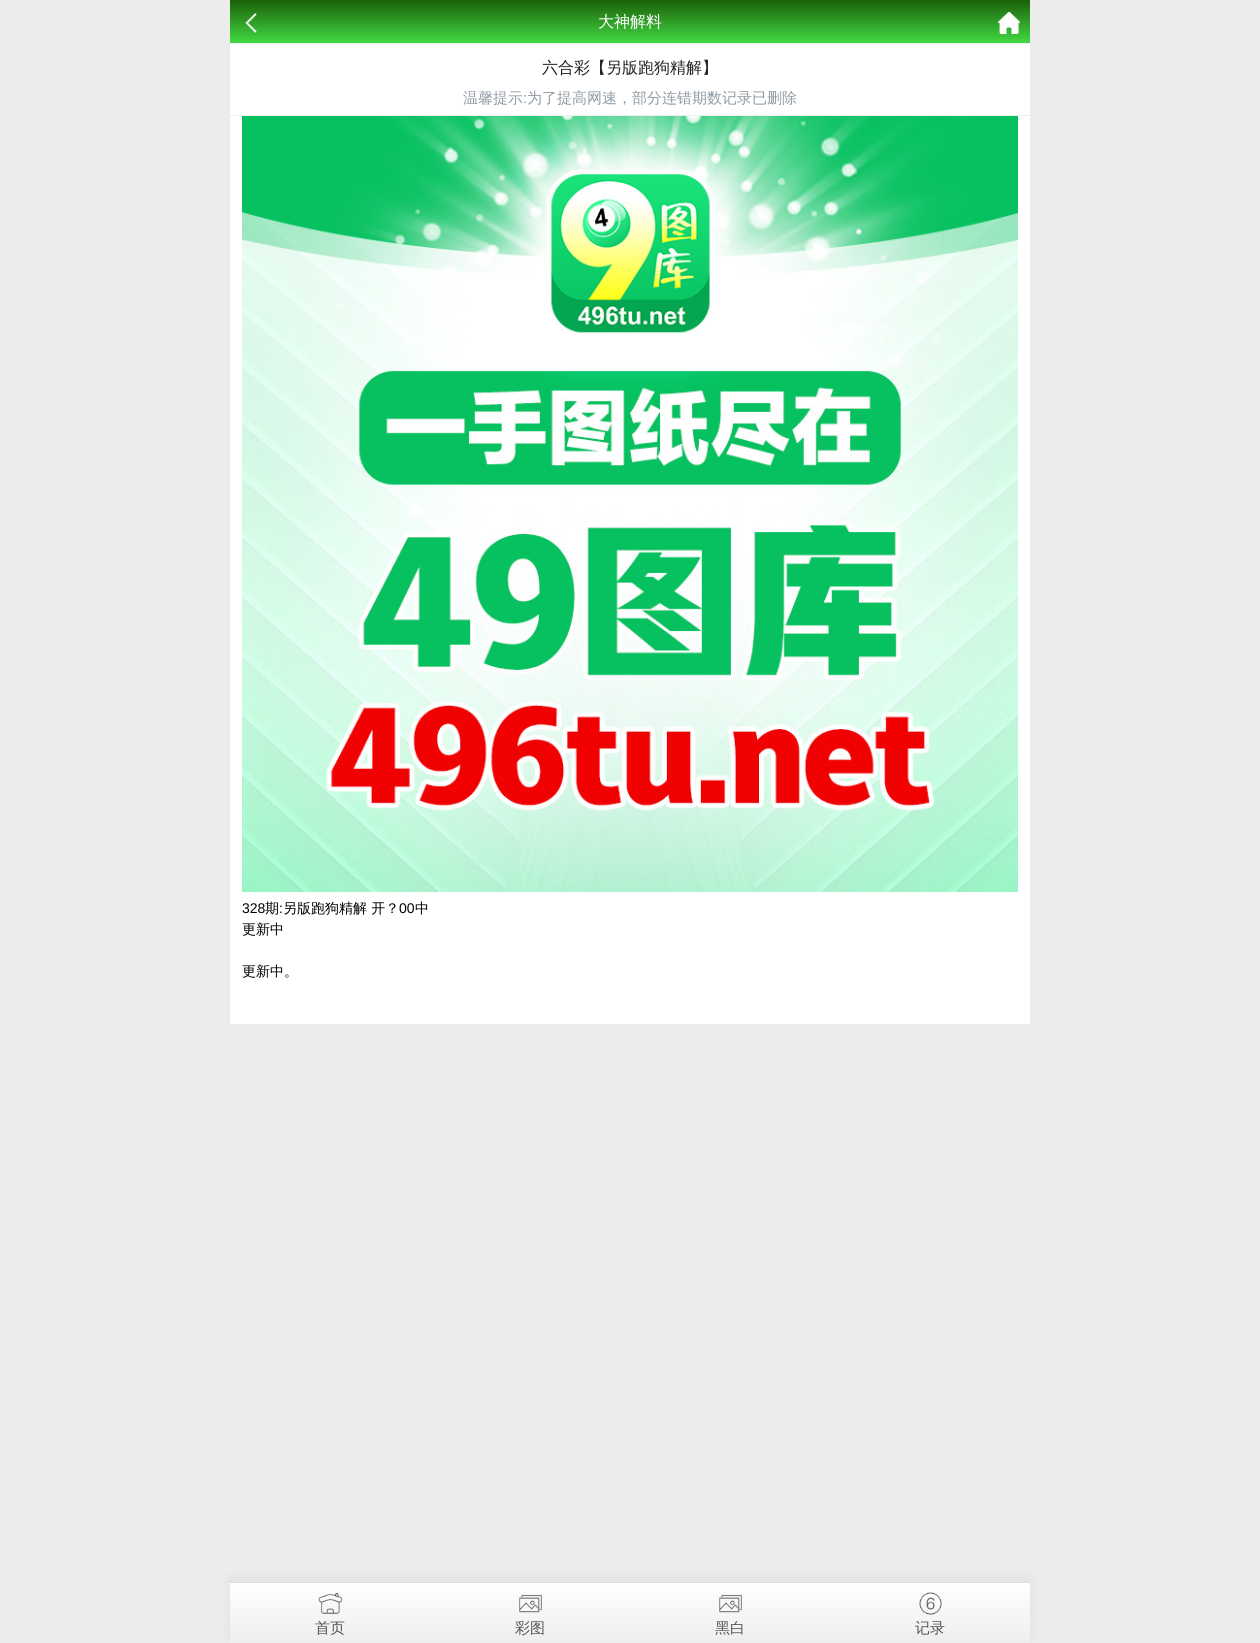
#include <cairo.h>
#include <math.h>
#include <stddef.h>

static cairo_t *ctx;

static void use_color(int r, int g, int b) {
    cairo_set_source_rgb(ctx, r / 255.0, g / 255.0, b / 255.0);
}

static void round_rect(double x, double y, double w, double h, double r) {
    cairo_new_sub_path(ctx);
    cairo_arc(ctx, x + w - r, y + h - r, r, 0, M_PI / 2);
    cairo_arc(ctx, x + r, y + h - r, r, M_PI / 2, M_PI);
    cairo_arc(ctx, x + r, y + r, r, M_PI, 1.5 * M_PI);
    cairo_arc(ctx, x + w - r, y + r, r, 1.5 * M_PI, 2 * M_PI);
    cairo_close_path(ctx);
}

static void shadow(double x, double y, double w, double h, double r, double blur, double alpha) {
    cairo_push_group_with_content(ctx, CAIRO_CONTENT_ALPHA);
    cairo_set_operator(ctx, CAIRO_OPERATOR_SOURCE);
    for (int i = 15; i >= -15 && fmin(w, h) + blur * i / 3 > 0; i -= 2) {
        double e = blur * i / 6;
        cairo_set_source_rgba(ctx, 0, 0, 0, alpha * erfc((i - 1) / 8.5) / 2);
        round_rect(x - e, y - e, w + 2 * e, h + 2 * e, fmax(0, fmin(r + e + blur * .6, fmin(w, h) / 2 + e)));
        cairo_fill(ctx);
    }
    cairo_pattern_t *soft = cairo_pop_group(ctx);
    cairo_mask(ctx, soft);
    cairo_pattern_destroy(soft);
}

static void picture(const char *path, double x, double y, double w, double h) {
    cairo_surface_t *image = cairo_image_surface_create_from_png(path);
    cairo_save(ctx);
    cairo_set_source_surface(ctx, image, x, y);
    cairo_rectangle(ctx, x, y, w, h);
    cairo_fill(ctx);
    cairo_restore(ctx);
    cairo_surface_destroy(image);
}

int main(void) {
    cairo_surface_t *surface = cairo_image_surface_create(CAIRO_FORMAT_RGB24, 1260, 1643);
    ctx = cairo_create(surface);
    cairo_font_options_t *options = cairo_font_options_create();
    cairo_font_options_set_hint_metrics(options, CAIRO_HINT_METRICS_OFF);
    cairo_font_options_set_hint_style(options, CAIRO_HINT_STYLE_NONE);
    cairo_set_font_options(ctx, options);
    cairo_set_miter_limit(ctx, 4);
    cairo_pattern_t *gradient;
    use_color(236, 236, 236);
    cairo_paint(ctx);
    gradient = cairo_pattern_create_linear(630, 43, 630, 0);
    cairo_pattern_add_color_stop_rgba(gradient, 0, 0.255, 0.847, 0.263, 1);
    cairo_pattern_add_color_stop_rgba(gradient, 1, 0.11, 0.38, 0.035, 1);
    cairo_set_source(ctx, gradient);
    cairo_pattern_destroy(gradient);
    cairo_rectangle(ctx, 230, 0, 800, 43);
    cairo_fill(ctx);
    use_color(239, 239, 239);
    cairo_rectangle(ctx, 230, 43, 800, 1);
    cairo_fill(ctx);
    picture("img1.png", 245, 13, 12, 20);
    cairo_select_font_face(ctx, "WenQuanYi Zen Hei Medium", CAIRO_FONT_SLANT_NORMAL, CAIRO_FONT_WEIGHT_NORMAL);
    cairo_set_font_size(ctx, 16);
    use_color(255, 255, 255);
    cairo_move_to(ctx, 598, 27);
    cairo_show_text(ctx, "大神解料");
    picture("img2.png", 998, 12, 22, 22);
    cairo_rectangle(ctx, 230, 44, 800, 980);
    cairo_fill(ctx);
    use_color(239, 239, 239);
    cairo_rectangle(ctx, 230, 115, 800, 1);
    cairo_fill(ctx);
    use_color(34, 34, 34);
    cairo_move_to(ctx, 542, 73);
    cairo_show_text(ctx, "六合彩【另版跑狗精解】");
    cairo_set_font_size(ctx, 15);
    use_color(144, 154, 164);
    cairo_move_to(ctx, 463, 103);
    cairo_show_text(ctx, "温馨提示");
    cairo_select_font_face(ctx, "Liberation Sans", CAIRO_FONT_SLANT_NORMAL, CAIRO_FONT_WEIGHT_NORMAL);
    cairo_move_to(ctx, 523, 103);
    cairo_show_text(ctx, ":");
    cairo_select_font_face(ctx, "WenQuanYi Zen Hei Medium", CAIRO_FONT_SLANT_NORMAL, CAIRO_FONT_WEIGHT_NORMAL);
    cairo_move_to(ctx, 527, 103);
    cairo_show_text(ctx, "为了提高网速，部分连错期数记录已删除");
    picture("img3.png", 242, 116, 776, 776);
    cairo_select_font_face(ctx, "Liberation Sans", CAIRO_FONT_SLANT_NORMAL, CAIRO_FONT_WEIGHT_NORMAL);
    cairo_set_font_size(ctx, 14);
    use_color(0, 0, 0);
    cairo_move_to(ctx, 242, 913);
    cairo_show_text(ctx, "328");
    cairo_select_font_face(ctx, "WenQuanYi Zen Hei Medium", CAIRO_FONT_SLANT_NORMAL, CAIRO_FONT_WEIGHT_NORMAL);
    cairo_move_to(ctx, 265, 913);
    cairo_show_text(ctx, "期");
    cairo_select_font_face(ctx, "Liberation Sans", CAIRO_FONT_SLANT_NORMAL, CAIRO_FONT_WEIGHT_NORMAL);
    cairo_move_to(ctx, 279, 913);
    cairo_show_text(ctx, ":");
    cairo_select_font_face(ctx, "WenQuanYi Zen Hei Medium", CAIRO_FONT_SLANT_NORMAL, CAIRO_FONT_WEIGHT_NORMAL);
    cairo_move_to(ctx, 283, 913);
    cairo_show_text(ctx, "另版跑狗精解 开？");
    cairo_select_font_face(ctx, "Liberation Sans", CAIRO_FONT_SLANT_NORMAL, CAIRO_FONT_WEIGHT_NORMAL);
    cairo_move_to(ctx, 399, 913);
    cairo_show_text(ctx, "00");
    cairo_select_font_face(ctx, "WenQuanYi Zen Hei Medium", CAIRO_FONT_SLANT_NORMAL, CAIRO_FONT_WEIGHT_NORMAL);
    cairo_move_to(ctx, 415, 913);
    cairo_show_text(ctx, "中");
    cairo_move_to(ctx, 242, 934);
    cairo_show_text(ctx, "更新中");
    cairo_move_to(ctx, 242, 976);
    cairo_show_text(ctx, "更新中。");
    use_color(0, 0, 0);
    shadow(230, 1578, 800, 61, 0, 5, 0.05);
    gradient = cairo_pattern_create_linear(630, 1643, 630, 1583);
    cairo_pattern_add_color_stop_rgba(gradient, 0, 0.933, 0.933, 0.933, 1);
    cairo_pattern_add_color_stop_rgba(gradient, 1, 1, 1, 1, 1);
    cairo_set_source(ctx, gradient);
    cairo_pattern_destroy(gradient);
    cairo_rectangle(ctx, 230, 1583, 800, 60);
    cairo_fill(ctx);
    use_color(221, 221, 221);
    cairo_rectangle(ctx, 230, 1582, 800, 1);
    cairo_fill(ctx);
    picture("img4.png", 318, 1593, 25, 21);
    cairo_set_font_size(ctx, 15);
    use_color(85, 85, 85);
    cairo_move_to(ctx, 315, 1633);
    cairo_show_text(ctx, "首页");
    picture("img5.png", 519, 1594, 23, 19);
    cairo_move_to(ctx, 515, 1633);
    cairo_show_text(ctx, "彩图");
    picture("img6.png", 719, 1594, 23, 19);
    cairo_move_to(ctx, 715, 1633);
    cairo_show_text(ctx, "黑白");
    picture("img7.png", 919, 1592, 23, 23);
    cairo_move_to(ctx, 915, 1633);
    cairo_show_text(ctx, "记录");
    cairo_surface_write_to_png(surface, "result.png");
    cairo_font_options_destroy(options);
    cairo_destroy(ctx);
    cairo_surface_destroy(surface);
    return 0;
}
